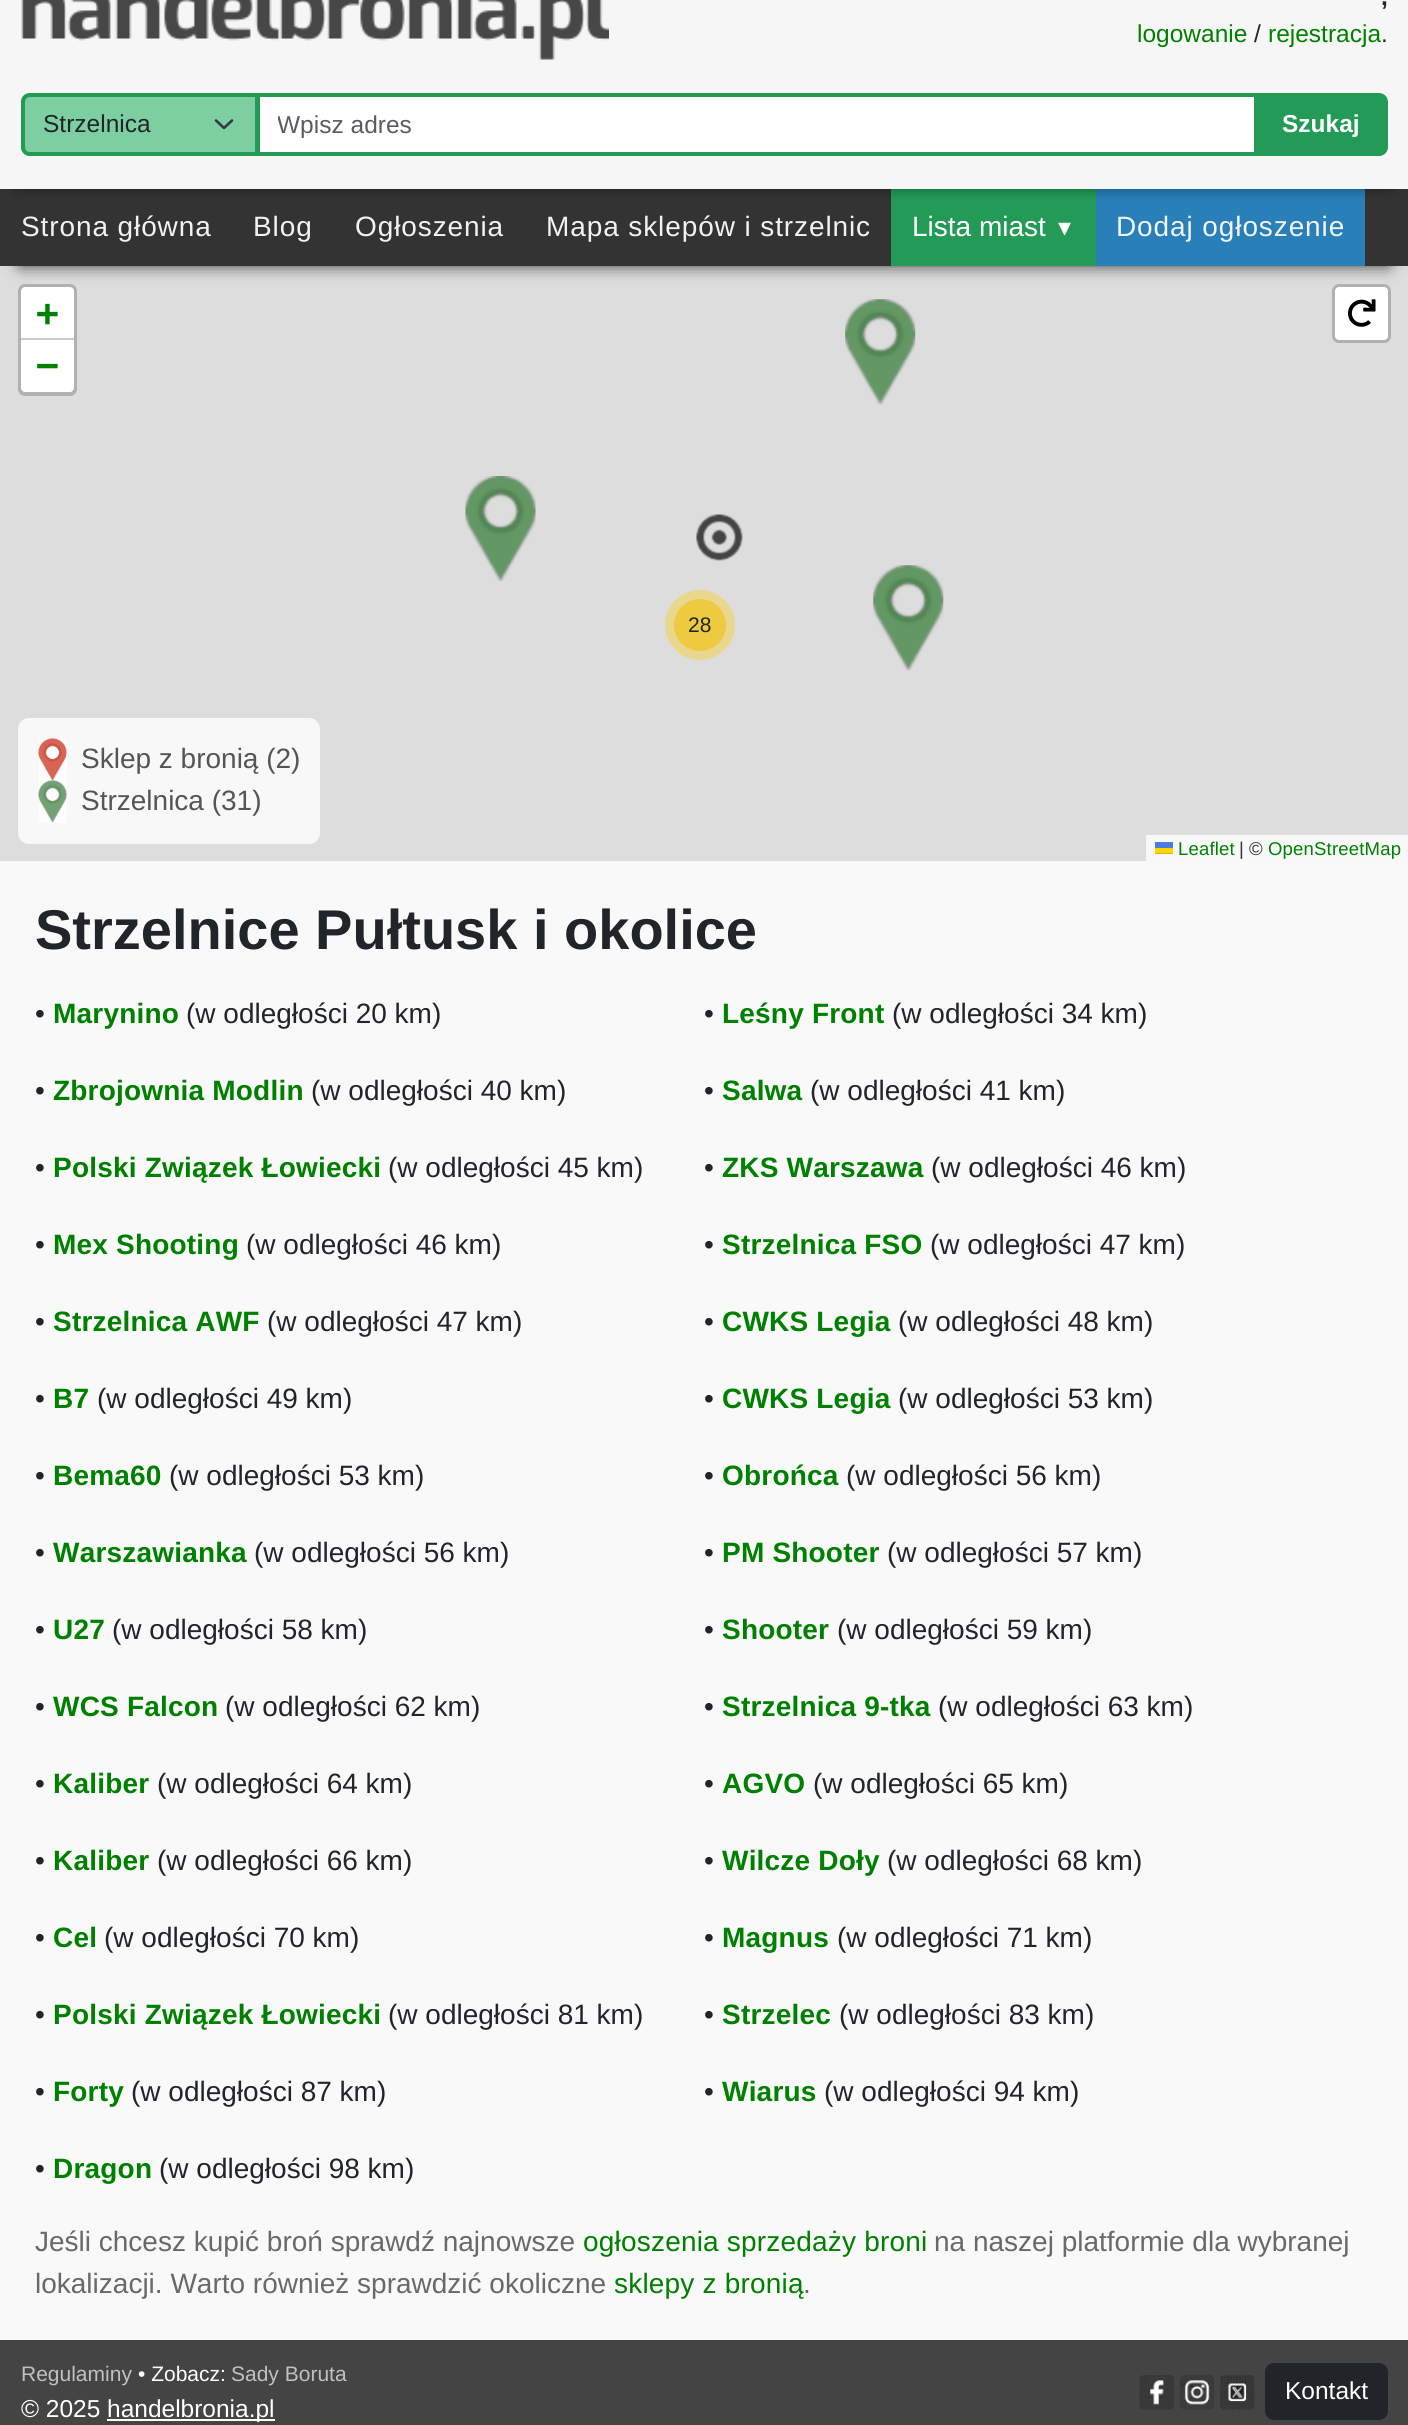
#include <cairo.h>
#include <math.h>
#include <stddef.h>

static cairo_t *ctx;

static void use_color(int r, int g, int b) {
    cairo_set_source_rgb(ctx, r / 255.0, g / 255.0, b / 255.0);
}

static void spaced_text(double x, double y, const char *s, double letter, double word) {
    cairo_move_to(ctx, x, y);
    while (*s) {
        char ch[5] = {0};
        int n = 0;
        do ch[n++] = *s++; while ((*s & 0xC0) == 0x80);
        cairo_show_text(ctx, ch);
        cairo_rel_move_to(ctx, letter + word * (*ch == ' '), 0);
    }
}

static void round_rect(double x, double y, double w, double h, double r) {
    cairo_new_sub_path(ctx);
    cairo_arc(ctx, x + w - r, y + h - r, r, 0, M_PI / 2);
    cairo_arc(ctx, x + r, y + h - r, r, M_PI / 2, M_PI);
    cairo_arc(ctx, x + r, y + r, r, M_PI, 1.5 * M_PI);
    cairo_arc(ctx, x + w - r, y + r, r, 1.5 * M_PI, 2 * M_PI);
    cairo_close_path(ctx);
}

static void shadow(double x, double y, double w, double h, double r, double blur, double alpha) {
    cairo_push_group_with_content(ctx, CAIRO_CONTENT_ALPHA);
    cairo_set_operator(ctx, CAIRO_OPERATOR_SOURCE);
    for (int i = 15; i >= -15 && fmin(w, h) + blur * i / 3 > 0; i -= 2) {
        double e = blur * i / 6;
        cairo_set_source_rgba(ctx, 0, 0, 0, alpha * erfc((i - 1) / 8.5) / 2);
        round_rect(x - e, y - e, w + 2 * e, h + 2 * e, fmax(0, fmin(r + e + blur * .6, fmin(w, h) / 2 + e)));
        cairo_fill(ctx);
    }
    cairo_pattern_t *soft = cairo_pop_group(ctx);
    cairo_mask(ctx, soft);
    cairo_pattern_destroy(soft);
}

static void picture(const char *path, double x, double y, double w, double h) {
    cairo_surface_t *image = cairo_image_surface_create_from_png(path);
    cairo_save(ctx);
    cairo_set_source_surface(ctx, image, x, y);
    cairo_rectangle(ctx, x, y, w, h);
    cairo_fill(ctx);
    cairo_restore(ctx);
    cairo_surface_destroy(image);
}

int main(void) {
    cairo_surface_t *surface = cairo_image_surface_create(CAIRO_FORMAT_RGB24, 1408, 2425);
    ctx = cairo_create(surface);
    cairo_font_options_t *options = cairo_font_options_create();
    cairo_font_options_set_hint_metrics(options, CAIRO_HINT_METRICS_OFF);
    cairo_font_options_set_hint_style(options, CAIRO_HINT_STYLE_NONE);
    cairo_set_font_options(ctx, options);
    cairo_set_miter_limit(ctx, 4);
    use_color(247, 246, 246);
    cairo_paint(ctx);
    use_color(221, 221, 221);
    cairo_rectangle(ctx, 0, 266, 1408, 595);
    cairo_fill(ctx);
    use_color(0, 0, 0);
    shadow(21, 228, 1367, 35, 0, 9, 1);
    use_color(51, 51, 51);
    cairo_rectangle(ctx, 0, 189, 1408, 77);
    cairo_fill(ctx);
    use_color(35, 155, 86);
    cairo_rectangle(ctx, 891, 189, 205, 77);
    cairo_fill(ctx);
    use_color(41, 128, 185);
    cairo_rectangle(ctx, 1096, 189, 269, 77);
    cairo_fill(ctx);
    cairo_save(ctx);
    cairo_rectangle(ctx, 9, 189, 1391, 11);
    cairo_clip(ctx);
    use_color(0, 0, 0);
    shadow(21, -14, 1367, 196, 0, 9, 1);
    cairo_restore(ctx);
    picture("img1.png", 21, 0, 588, 60);
    cairo_select_font_face(ctx, "Liberation Sans", CAIRO_FONT_SLANT_NORMAL, CAIRO_FONT_WEIGHT_BOLD);
    cairo_set_font_size(ctx, 24.5);
    use_color(33, 37, 41);
    cairo_move_to(ctx, 1381, 5);
    cairo_show_text(ctx, ",");
    cairo_select_font_face(ctx, "Liberation Sans", CAIRO_FONT_SLANT_NORMAL, CAIRO_FONT_WEIGHT_NORMAL);
    use_color(0, 128, 0);
    cairo_move_to(ctx, 1137, 42);
    cairo_show_text(ctx, "logowanie");
    use_color(33, 37, 41);
    cairo_move_to(ctx, 1254, 42);
    cairo_show_text(ctx, "/");
    use_color(0, 128, 0);
    cairo_move_to(ctx, 1268, 42);
    cairo_show_text(ctx, "rejestracja");
    use_color(33, 37, 41);
    cairo_move_to(ctx, 1381, 42);
    cairo_show_text(ctx, ".");
    use_color(125, 206, 160);
    cairo_new_path(ctx);
    cairo_move_to(ctx, 30, 93);
    cairo_line_to(ctx, 259, 93);
    cairo_line_to(ctx, 259, 156);
    cairo_line_to(ctx, 30, 156);
    cairo_curve_to(ctx, 25, 156, 21, 152, 21, 147);
    cairo_line_to(ctx, 21, 102);
    cairo_curve_to(ctx, 21, 97, 25, 93, 30, 93);
    cairo_close_path(ctx);
    cairo_fill(ctx);
    cairo_new_path(ctx);
    cairo_move_to(ctx, 216, 120.5);
    cairo_line_to(ctx, 224, 128);
    cairo_line_to(ctx, 232, 120.5);
    use_color(52, 58, 64);
    cairo_set_line_width(ctx, 2.6);
    cairo_set_line_cap(ctx, CAIRO_LINE_CAP_ROUND);
    cairo_set_line_join(ctx, CAIRO_LINE_JOIN_ROUND);
    cairo_stroke(ctx);
    cairo_new_path(ctx);
    cairo_move_to(ctx, 30, 95);
    cairo_line_to(ctx, 257, 95);
    cairo_line_to(ctx, 257, 154);
    cairo_line_to(ctx, 30, 154);
    cairo_curve_to(ctx, 26, 154, 23, 151, 23, 147);
    cairo_line_to(ctx, 23, 102);
    cairo_curve_to(ctx, 23, 98, 26, 95, 30, 95);
    cairo_close_path(ctx);
    use_color(35, 155, 86);
    cairo_set_line_width(ctx, 4);
    cairo_set_line_cap(ctx, CAIRO_LINE_CAP_BUTT);
    cairo_set_line_join(ctx, CAIRO_LINE_JOIN_MITER);
    cairo_stroke(ctx);
    use_color(33, 37, 41);
    cairo_move_to(ctx, 43, 132);
    cairo_show_text(ctx, "Strzelnica");
    use_color(255, 255, 255);
    cairo_rectangle(ctx, 258, 95, 998, 59);
    cairo_fill_preserve(ctx);
    use_color(35, 155, 86);
    cairo_stroke(ctx);
    cairo_save(ctx);
    cairo_rectangle(ctx, 278, 110, 959, 28);
    cairo_clip(ctx);
    use_color(89, 92, 95);
    cairo_move_to(ctx, 277, 133);
    cairo_show_text(ctx, "Wpisz adres");
    cairo_restore(ctx);
    cairo_new_path(ctx);
    cairo_move_to(ctx, 1255, 93);
    cairo_line_to(ctx, 1379, 93);
    cairo_curve_to(ctx, 1384, 93, 1388, 97, 1388, 102);
    cairo_line_to(ctx, 1388, 147);
    cairo_curve_to(ctx, 1388, 152, 1384, 156, 1379, 156);
    cairo_line_to(ctx, 1255, 156);
    cairo_close_path(ctx);
    cairo_fill(ctx);
    cairo_select_font_face(ctx, "Liberation Sans", CAIRO_FONT_SLANT_NORMAL, CAIRO_FONT_WEIGHT_BOLD);
    use_color(255, 255, 255);
    cairo_move_to(ctx, 1282, 132);
    cairo_show_text(ctx, "Szukaj");
    cairo_select_font_face(ctx, "Liberation Sans", CAIRO_FONT_SLANT_NORMAL, CAIRO_FONT_WEIGHT_NORMAL);
    cairo_set_font_size(ctx, 28);
    use_color(242, 242, 242);
    spaced_text(21, 236, "Strona główna", 0.9, 0);
    spaced_text(253, 236, "Blog", 0.9, 0);
    spaced_text(355, 236, "Ogłoszenia", 0.9, 0);
    spaced_text(546, 236, "Mapa sklepów i strzelnic", 0.9, 0);
    use_color(255, 255, 255);
    cairo_move_to(ctx, 912, 236);
    cairo_show_text(ctx, "Lista miast");
    cairo_select_font_face(ctx, "DejaVu Sans", CAIRO_FONT_SLANT_NORMAL, CAIRO_FONT_WEIGHT_NORMAL);
    cairo_set_font_size(ctx, 26);
    spaced_text(1058, 236, "▾", 7, 0);
    cairo_select_font_face(ctx, "Liberation Sans", CAIRO_FONT_SLANT_NORMAL, CAIRO_FONT_WEIGHT_NORMAL);
    cairo_set_font_size(ctx, 28);
    use_color(242, 242, 242);
    spaced_text(1116, 236, "Dodaj ogłoszenie", 0.9, 0);
    use_color(249, 249, 249);
    cairo_rectangle(ctx, 0, 861, 1408, 1479);
    cairo_fill(ctx);
    round_rect(20, 286, 55, 108, 5);
    use_color(177, 177, 177);
    cairo_stroke(ctx);
    use_color(255, 255, 255);
    cairo_new_path(ctx);
    cairo_move_to(ctx, 25, 287);
    cairo_line_to(ctx, 70, 287);
    cairo_curve_to(ctx, 72, 287, 74, 289, 74, 291);
    cairo_line_to(ctx, 74, 340);
    cairo_line_to(ctx, 21, 340);
    cairo_line_to(ctx, 21, 291);
    cairo_curve_to(ctx, 21, 289, 23, 287, 25, 287);
    cairo_close_path(ctx);
    cairo_fill(ctx);
    use_color(204, 204, 204);
    cairo_rectangle(ctx, 21, 338, 53, 2);
    cairo_fill(ctx);
    cairo_select_font_face(ctx, "DejaVu Sans Mono", CAIRO_FONT_SLANT_NORMAL, CAIRO_FONT_WEIGHT_BOLD);
    cairo_set_font_size(ctx, 38);
    use_color(0, 128, 0);
    spaced_text(36, 326, "+", 0.2, 0);
    use_color(255, 255, 255);
    cairo_new_path(ctx);
    cairo_move_to(ctx, 21, 340);
    cairo_line_to(ctx, 74, 340);
    cairo_line_to(ctx, 74, 388);
    cairo_curve_to(ctx, 74, 390, 72, 392, 70, 392);
    cairo_line_to(ctx, 25, 392);
    cairo_curve_to(ctx, 23, 392, 21, 390, 21, 388);
    cairo_close_path(ctx);
    cairo_fill(ctx);
    use_color(0, 128, 0);
    spaced_text(36, 378, "−", 0.2, 0);
    round_rect(1334, 286, 55, 55, 5);
    use_color(177, 177, 177);
    cairo_stroke(ctx);
    use_color(255, 255, 255);
    round_rect(1335, 287, 53, 53, 4);
    cairo_fill(ctx);
    picture("img2.png", 1348, 299, 28, 28);
    use_color(248, 248, 248);
    round_rect(18, 718, 302, 126, 11);
    cairo_fill(ctx);
    use_color(253, 253, 253);
    cairo_rectangle(ctx, 39, 739, 28, 84);
    cairo_fill(ctx);
    picture("img3.png", 38, 738, 29, 43);
    cairo_select_font_face(ctx, "Liberation Sans", CAIRO_FONT_SLANT_NORMAL, CAIRO_FONT_WEIGHT_NORMAL);
    cairo_set_font_size(ctx, 28);
    use_color(85, 85, 85);
    cairo_move_to(ctx, 81, 768);
    cairo_show_text(ctx, "Sklep z bronią (2)");
    picture("img4.png", 38, 780, 29, 43);
    cairo_move_to(ctx, 81, 810);
    cairo_show_text(ctx, "Strzelnica (31)");
    use_color(248, 248, 248);
    cairo_rectangle(ctx, 1146, 835, 262, 26);
    cairo_fill(ctx);
    cairo_set_font_size(ctx, 18.5);
    use_color(0, 128, 0);
    spaced_text(1178, 855, "Leaflet", 0.2, 0);
    use_color(76, 123, 225);
    cairo_rectangle(ctx, 1155, 842, 18, 6);
    cairo_fill(ctx);
    use_color(255, 213, 0);
    cairo_rectangle(ctx, 1155, 848, 18, 5);
    cairo_fill(ctx);
    use_color(224, 188, 0);
    cairo_rectangle(ctx, 1155, 853, 18, 1);
    cairo_fill(ctx);
    use_color(51, 51, 51);
    cairo_move_to(ctx, 1239, 855);
    cairo_show_text(ctx, "| ©");
    use_color(0, 128, 0);
    spaced_text(1268, 855, "OpenStreetMap", 0.2, 0);
    picture("img5.png", 845, 299, 71, 106);
    picture("img6.png", 465, 476, 71, 105);
    picture("img7.png", 696, 514, 47, 47);
    use_color(233, 215, 141);
    cairo_arc(ctx, 700, 625, 35, 0, 2 * M_PI);
    cairo_fill(ctx);
    use_color(237, 202, 64);
    cairo_arc(ctx, 700, 625, 26, 0, 2 * M_PI);
    cairo_fill(ctx);
    cairo_set_font_size(ctx, 21);
    use_color(33, 37, 41);
    cairo_move_to(ctx, 688, 632);
    cairo_show_text(ctx, "28");
    picture("img5.png", 873, 565, 71, 106);
    cairo_select_font_face(ctx, "Liberation Sans", CAIRO_FONT_SLANT_NORMAL, CAIRO_FONT_WEIGHT_BOLD);
    cairo_set_font_size(ctx, 56);
    cairo_move_to(ctx, 35, 949);
    cairo_show_text(ctx, "Strzelnice Pułtusk i okolice");
    cairo_select_font_face(ctx, "Liberation Sans", CAIRO_FONT_SLANT_NORMAL, CAIRO_FONT_WEIGHT_NORMAL);
    cairo_set_font_size(ctx, 28);
    cairo_move_to(ctx, 35, 1023);
    cairo_show_text(ctx, "•");
    cairo_select_font_face(ctx, "Liberation Sans", CAIRO_FONT_SLANT_NORMAL, CAIRO_FONT_WEIGHT_BOLD);
    use_color(0, 128, 0);
    spaced_text(53, 1023, "Marynino", 0.2, 0);
    cairo_select_font_face(ctx, "Liberation Sans", CAIRO_FONT_SLANT_NORMAL, CAIRO_FONT_WEIGHT_NORMAL);
    use_color(33, 37, 41);
    cairo_move_to(ctx, 186, 1023);
    cairo_show_text(ctx, "(w odległości 20 km)");
    cairo_move_to(ctx, 704, 1023);
    cairo_show_text(ctx, "•");
    cairo_select_font_face(ctx, "Liberation Sans", CAIRO_FONT_SLANT_NORMAL, CAIRO_FONT_WEIGHT_BOLD);
    use_color(0, 128, 0);
    spaced_text(722, 1023, "Leśny Front", 0.2, 0);
    cairo_select_font_face(ctx, "Liberation Sans", CAIRO_FONT_SLANT_NORMAL, CAIRO_FONT_WEIGHT_NORMAL);
    use_color(33, 37, 41);
    cairo_move_to(ctx, 892, 1023);
    cairo_show_text(ctx, "(w odległości 34 km)");
    cairo_move_to(ctx, 35, 1100);
    cairo_show_text(ctx, "•");
    cairo_select_font_face(ctx, "Liberation Sans", CAIRO_FONT_SLANT_NORMAL, CAIRO_FONT_WEIGHT_BOLD);
    use_color(0, 128, 0);
    spaced_text(53, 1100, "Zbrojownia Modlin", 0.2, 0);
    cairo_select_font_face(ctx, "Liberation Sans", CAIRO_FONT_SLANT_NORMAL, CAIRO_FONT_WEIGHT_NORMAL);
    use_color(33, 37, 41);
    cairo_move_to(ctx, 311, 1100);
    cairo_show_text(ctx, "(w odległości 40 km)");
    cairo_move_to(ctx, 704, 1100);
    cairo_show_text(ctx, "•");
    cairo_select_font_face(ctx, "Liberation Sans", CAIRO_FONT_SLANT_NORMAL, CAIRO_FONT_WEIGHT_BOLD);
    use_color(0, 128, 0);
    spaced_text(722, 1100, "Salwa", 0.2, 0);
    cairo_select_font_face(ctx, "Liberation Sans", CAIRO_FONT_SLANT_NORMAL, CAIRO_FONT_WEIGHT_NORMAL);
    use_color(33, 37, 41);
    cairo_move_to(ctx, 810, 1100);
    cairo_show_text(ctx, "(w odległości 41 km)");
    cairo_move_to(ctx, 35, 1177);
    cairo_show_text(ctx, "•");
    cairo_select_font_face(ctx, "Liberation Sans", CAIRO_FONT_SLANT_NORMAL, CAIRO_FONT_WEIGHT_BOLD);
    use_color(0, 128, 0);
    spaced_text(53, 1177, "Polski Związek Łowiecki", 0.2, 0);
    cairo_select_font_face(ctx, "Liberation Sans", CAIRO_FONT_SLANT_NORMAL, CAIRO_FONT_WEIGHT_NORMAL);
    use_color(33, 37, 41);
    cairo_move_to(ctx, 388, 1177);
    cairo_show_text(ctx, "(w odległości 45 km)");
    cairo_move_to(ctx, 704, 1177);
    cairo_show_text(ctx, "•");
    cairo_select_font_face(ctx, "Liberation Sans", CAIRO_FONT_SLANT_NORMAL, CAIRO_FONT_WEIGHT_BOLD);
    use_color(0, 128, 0);
    spaced_text(722, 1177, "ZKS Warszawa", 0.2, 0);
    cairo_select_font_face(ctx, "Liberation Sans", CAIRO_FONT_SLANT_NORMAL, CAIRO_FONT_WEIGHT_NORMAL);
    use_color(33, 37, 41);
    cairo_move_to(ctx, 931, 1177);
    cairo_show_text(ctx, "(w odległości 46 km)");
    cairo_move_to(ctx, 35, 1254);
    cairo_show_text(ctx, "•");
    cairo_select_font_face(ctx, "Liberation Sans", CAIRO_FONT_SLANT_NORMAL, CAIRO_FONT_WEIGHT_BOLD);
    use_color(0, 128, 0);
    spaced_text(53, 1254, "Mex Shooting", 0.2, 0);
    cairo_select_font_face(ctx, "Liberation Sans", CAIRO_FONT_SLANT_NORMAL, CAIRO_FONT_WEIGHT_NORMAL);
    use_color(33, 37, 41);
    cairo_move_to(ctx, 246, 1254);
    cairo_show_text(ctx, "(w odległości 46 km)");
    cairo_move_to(ctx, 704, 1254);
    cairo_show_text(ctx, "•");
    cairo_select_font_face(ctx, "Liberation Sans", CAIRO_FONT_SLANT_NORMAL, CAIRO_FONT_WEIGHT_BOLD);
    use_color(0, 128, 0);
    spaced_text(722, 1254, "Strzelnica FSO", 0.2, 0);
    cairo_select_font_face(ctx, "Liberation Sans", CAIRO_FONT_SLANT_NORMAL, CAIRO_FONT_WEIGHT_NORMAL);
    use_color(33, 37, 41);
    cairo_move_to(ctx, 930, 1254);
    cairo_show_text(ctx, "(w odległości 47 km)");
    cairo_move_to(ctx, 35, 1331);
    cairo_show_text(ctx, "•");
    cairo_select_font_face(ctx, "Liberation Sans", CAIRO_FONT_SLANT_NORMAL, CAIRO_FONT_WEIGHT_BOLD);
    use_color(0, 128, 0);
    spaced_text(53, 1331, "Strzelnica AWF", 0.2, 0);
    cairo_select_font_face(ctx, "Liberation Sans", CAIRO_FONT_SLANT_NORMAL, CAIRO_FONT_WEIGHT_NORMAL);
    use_color(33, 37, 41);
    cairo_move_to(ctx, 267, 1331);
    cairo_show_text(ctx, "(w odległości 47 km)");
    cairo_move_to(ctx, 704, 1331);
    cairo_show_text(ctx, "•");
    cairo_select_font_face(ctx, "Liberation Sans", CAIRO_FONT_SLANT_NORMAL, CAIRO_FONT_WEIGHT_BOLD);
    use_color(0, 128, 0);
    spaced_text(722, 1331, "CWKS Legia", 0.2, 0);
    cairo_select_font_face(ctx, "Liberation Sans", CAIRO_FONT_SLANT_NORMAL, CAIRO_FONT_WEIGHT_NORMAL);
    use_color(33, 37, 41);
    cairo_move_to(ctx, 898, 1331);
    cairo_show_text(ctx, "(w odległości 48 km)");
    cairo_move_to(ctx, 35, 1408);
    cairo_show_text(ctx, "•");
    cairo_select_font_face(ctx, "Liberation Sans", CAIRO_FONT_SLANT_NORMAL, CAIRO_FONT_WEIGHT_BOLD);
    use_color(0, 128, 0);
    spaced_text(53, 1408, "B7", 0.2, 0);
    cairo_select_font_face(ctx, "Liberation Sans", CAIRO_FONT_SLANT_NORMAL, CAIRO_FONT_WEIGHT_NORMAL);
    use_color(33, 37, 41);
    cairo_move_to(ctx, 97, 1408);
    cairo_show_text(ctx, "(w odległości 49 km)");
    cairo_move_to(ctx, 704, 1408);
    cairo_show_text(ctx, "•");
    cairo_select_font_face(ctx, "Liberation Sans", CAIRO_FONT_SLANT_NORMAL, CAIRO_FONT_WEIGHT_BOLD);
    use_color(0, 128, 0);
    spaced_text(722, 1408, "CWKS Legia", 0.2, 0);
    cairo_select_font_face(ctx, "Liberation Sans", CAIRO_FONT_SLANT_NORMAL, CAIRO_FONT_WEIGHT_NORMAL);
    use_color(33, 37, 41);
    cairo_move_to(ctx, 898, 1408);
    cairo_show_text(ctx, "(w odległości 53 km)");
    cairo_move_to(ctx, 35, 1485);
    cairo_show_text(ctx, "•");
    cairo_select_font_face(ctx, "Liberation Sans", CAIRO_FONT_SLANT_NORMAL, CAIRO_FONT_WEIGHT_BOLD);
    use_color(0, 128, 0);
    spaced_text(53, 1485, "Bema60", 0.2, 0);
    cairo_select_font_face(ctx, "Liberation Sans", CAIRO_FONT_SLANT_NORMAL, CAIRO_FONT_WEIGHT_NORMAL);
    use_color(33, 37, 41);
    cairo_move_to(ctx, 169, 1485);
    cairo_show_text(ctx, "(w odległości 53 km)");
    cairo_move_to(ctx, 704, 1485);
    cairo_show_text(ctx, "•");
    cairo_select_font_face(ctx, "Liberation Sans", CAIRO_FONT_SLANT_NORMAL, CAIRO_FONT_WEIGHT_BOLD);
    use_color(0, 128, 0);
    spaced_text(722, 1485, "Obrońca", 0.2, 0);
    cairo_select_font_face(ctx, "Liberation Sans", CAIRO_FONT_SLANT_NORMAL, CAIRO_FONT_WEIGHT_NORMAL);
    use_color(33, 37, 41);
    cairo_move_to(ctx, 846, 1485);
    cairo_show_text(ctx, "(w odległości 56 km)");
    cairo_move_to(ctx, 35, 1562);
    cairo_show_text(ctx, "•");
    cairo_select_font_face(ctx, "Liberation Sans", CAIRO_FONT_SLANT_NORMAL, CAIRO_FONT_WEIGHT_BOLD);
    use_color(0, 128, 0);
    spaced_text(53, 1562, "Warszawianka", 0.2, 0);
    cairo_select_font_face(ctx, "Liberation Sans", CAIRO_FONT_SLANT_NORMAL, CAIRO_FONT_WEIGHT_NORMAL);
    use_color(33, 37, 41);
    cairo_move_to(ctx, 254, 1562);
    cairo_show_text(ctx, "(w odległości 56 km)");
    cairo_move_to(ctx, 704, 1562);
    cairo_show_text(ctx, "•");
    cairo_select_font_face(ctx, "Liberation Sans", CAIRO_FONT_SLANT_NORMAL, CAIRO_FONT_WEIGHT_BOLD);
    use_color(0, 128, 0);
    spaced_text(722, 1562, "PM Shooter", 0.2, 0);
    cairo_select_font_face(ctx, "Liberation Sans", CAIRO_FONT_SLANT_NORMAL, CAIRO_FONT_WEIGHT_NORMAL);
    use_color(33, 37, 41);
    cairo_move_to(ctx, 887, 1562);
    cairo_show_text(ctx, "(w odległości 57 km)");
    cairo_move_to(ctx, 35, 1639);
    cairo_show_text(ctx, "•");
    cairo_select_font_face(ctx, "Liberation Sans", CAIRO_FONT_SLANT_NORMAL, CAIRO_FONT_WEIGHT_BOLD);
    use_color(0, 128, 0);
    spaced_text(53, 1639, "U27", 0.2, 0);
    cairo_select_font_face(ctx, "Liberation Sans", CAIRO_FONT_SLANT_NORMAL, CAIRO_FONT_WEIGHT_NORMAL);
    use_color(33, 37, 41);
    cairo_move_to(ctx, 112, 1639);
    cairo_show_text(ctx, "(w odległości 58 km)");
    cairo_move_to(ctx, 704, 1639);
    cairo_show_text(ctx, "•");
    cairo_select_font_face(ctx, "Liberation Sans", CAIRO_FONT_SLANT_NORMAL, CAIRO_FONT_WEIGHT_BOLD);
    use_color(0, 128, 0);
    spaced_text(722, 1639, "Shooter", 0.2, 0);
    cairo_select_font_face(ctx, "Liberation Sans", CAIRO_FONT_SLANT_NORMAL, CAIRO_FONT_WEIGHT_NORMAL);
    use_color(33, 37, 41);
    cairo_move_to(ctx, 837, 1639);
    cairo_show_text(ctx, "(w odległości 59 km)");
    cairo_move_to(ctx, 35, 1716);
    cairo_show_text(ctx, "•");
    cairo_select_font_face(ctx, "Liberation Sans", CAIRO_FONT_SLANT_NORMAL, CAIRO_FONT_WEIGHT_BOLD);
    use_color(0, 128, 0);
    spaced_text(53, 1716, "WCS Falcon", 0.2, 0);
    cairo_select_font_face(ctx, "Liberation Sans", CAIRO_FONT_SLANT_NORMAL, CAIRO_FONT_WEIGHT_NORMAL);
    use_color(33, 37, 41);
    cairo_move_to(ctx, 225, 1716);
    cairo_show_text(ctx, "(w odległości 62 km)");
    cairo_move_to(ctx, 704, 1716);
    cairo_show_text(ctx, "•");
    cairo_select_font_face(ctx, "Liberation Sans", CAIRO_FONT_SLANT_NORMAL, CAIRO_FONT_WEIGHT_BOLD);
    use_color(0, 128, 0);
    spaced_text(722, 1716, "Strzelnica 9-tka", 0.2, 0);
    cairo_select_font_face(ctx, "Liberation Sans", CAIRO_FONT_SLANT_NORMAL, CAIRO_FONT_WEIGHT_NORMAL);
    use_color(33, 37, 41);
    cairo_move_to(ctx, 938, 1716);
    cairo_show_text(ctx, "(w odległości 63 km)");
    cairo_move_to(ctx, 35, 1793);
    cairo_show_text(ctx, "•");
    cairo_select_font_face(ctx, "Liberation Sans", CAIRO_FONT_SLANT_NORMAL, CAIRO_FONT_WEIGHT_BOLD);
    use_color(0, 128, 0);
    spaced_text(53, 1793, "Kaliber", 0.2, 0);
    cairo_select_font_face(ctx, "Liberation Sans", CAIRO_FONT_SLANT_NORMAL, CAIRO_FONT_WEIGHT_NORMAL);
    use_color(33, 37, 41);
    cairo_move_to(ctx, 157, 1793);
    cairo_show_text(ctx, "(w odległości 64 km)");
    cairo_move_to(ctx, 704, 1793);
    cairo_show_text(ctx, "•");
    cairo_select_font_face(ctx, "Liberation Sans", CAIRO_FONT_SLANT_NORMAL, CAIRO_FONT_WEIGHT_BOLD);
    use_color(0, 128, 0);
    spaced_text(722, 1793, "AGVO", 0.2, 0);
    cairo_select_font_face(ctx, "Liberation Sans", CAIRO_FONT_SLANT_NORMAL, CAIRO_FONT_WEIGHT_NORMAL);
    use_color(33, 37, 41);
    cairo_move_to(ctx, 813, 1793);
    cairo_show_text(ctx, "(w odległości 65 km)");
    cairo_move_to(ctx, 35, 1870);
    cairo_show_text(ctx, "•");
    cairo_select_font_face(ctx, "Liberation Sans", CAIRO_FONT_SLANT_NORMAL, CAIRO_FONT_WEIGHT_BOLD);
    use_color(0, 128, 0);
    spaced_text(53, 1870, "Kaliber", 0.2, 0);
    cairo_select_font_face(ctx, "Liberation Sans", CAIRO_FONT_SLANT_NORMAL, CAIRO_FONT_WEIGHT_NORMAL);
    use_color(33, 37, 41);
    cairo_move_to(ctx, 157, 1870);
    cairo_show_text(ctx, "(w odległości 66 km)");
    cairo_move_to(ctx, 704, 1870);
    cairo_show_text(ctx, "•");
    cairo_select_font_face(ctx, "Liberation Sans", CAIRO_FONT_SLANT_NORMAL, CAIRO_FONT_WEIGHT_BOLD);
    use_color(0, 128, 0);
    spaced_text(722, 1870, "Wilcze Doły", 0.2, 0);
    cairo_select_font_face(ctx, "Liberation Sans", CAIRO_FONT_SLANT_NORMAL, CAIRO_FONT_WEIGHT_NORMAL);
    use_color(33, 37, 41);
    cairo_move_to(ctx, 887, 1870);
    cairo_show_text(ctx, "(w odległości 68 km)");
    cairo_move_to(ctx, 35, 1947);
    cairo_show_text(ctx, "•");
    cairo_select_font_face(ctx, "Liberation Sans", CAIRO_FONT_SLANT_NORMAL, CAIRO_FONT_WEIGHT_BOLD);
    use_color(0, 128, 0);
    spaced_text(53, 1947, "Cel", 0.2, 0);
    cairo_select_font_face(ctx, "Liberation Sans", CAIRO_FONT_SLANT_NORMAL, CAIRO_FONT_WEIGHT_NORMAL);
    use_color(33, 37, 41);
    cairo_move_to(ctx, 104, 1947);
    cairo_show_text(ctx, "(w odległości 70 km)");
    cairo_move_to(ctx, 704, 1947);
    cairo_show_text(ctx, "•");
    cairo_select_font_face(ctx, "Liberation Sans", CAIRO_FONT_SLANT_NORMAL, CAIRO_FONT_WEIGHT_BOLD);
    use_color(0, 128, 0);
    spaced_text(722, 1947, "Magnus", 0.2, 0);
    cairo_select_font_face(ctx, "Liberation Sans", CAIRO_FONT_SLANT_NORMAL, CAIRO_FONT_WEIGHT_NORMAL);
    use_color(33, 37, 41);
    cairo_move_to(ctx, 837, 1947);
    cairo_show_text(ctx, "(w odległości 71 km)");
    cairo_move_to(ctx, 35, 2024);
    cairo_show_text(ctx, "•");
    cairo_select_font_face(ctx, "Liberation Sans", CAIRO_FONT_SLANT_NORMAL, CAIRO_FONT_WEIGHT_BOLD);
    use_color(0, 128, 0);
    spaced_text(53, 2024, "Polski Związek Łowiecki", 0.2, 0);
    cairo_select_font_face(ctx, "Liberation Sans", CAIRO_FONT_SLANT_NORMAL, CAIRO_FONT_WEIGHT_NORMAL);
    use_color(33, 37, 41);
    cairo_move_to(ctx, 388, 2024);
    cairo_show_text(ctx, "(w odległości 81 km)");
    cairo_move_to(ctx, 704, 2024);
    cairo_show_text(ctx, "•");
    cairo_select_font_face(ctx, "Liberation Sans", CAIRO_FONT_SLANT_NORMAL, CAIRO_FONT_WEIGHT_BOLD);
    use_color(0, 128, 0);
    spaced_text(722, 2024, "Strzelec", 0.2, 0);
    cairo_select_font_face(ctx, "Liberation Sans", CAIRO_FONT_SLANT_NORMAL, CAIRO_FONT_WEIGHT_NORMAL);
    use_color(33, 37, 41);
    cairo_move_to(ctx, 839, 2024);
    cairo_show_text(ctx, "(w odległości 83 km)");
    cairo_move_to(ctx, 35, 2101);
    cairo_show_text(ctx, "•");
    cairo_select_font_face(ctx, "Liberation Sans", CAIRO_FONT_SLANT_NORMAL, CAIRO_FONT_WEIGHT_BOLD);
    use_color(0, 128, 0);
    spaced_text(53, 2101, "Forty", 0.2, 0);
    cairo_select_font_face(ctx, "Liberation Sans", CAIRO_FONT_SLANT_NORMAL, CAIRO_FONT_WEIGHT_NORMAL);
    use_color(33, 37, 41);
    cairo_move_to(ctx, 131, 2101);
    cairo_show_text(ctx, "(w odległości 87 km)");
    cairo_move_to(ctx, 704, 2101);
    cairo_show_text(ctx, "•");
    cairo_select_font_face(ctx, "Liberation Sans", CAIRO_FONT_SLANT_NORMAL, CAIRO_FONT_WEIGHT_BOLD);
    use_color(0, 128, 0);
    spaced_text(722, 2101, "Wiarus", 0.2, 0);
    cairo_select_font_face(ctx, "Liberation Sans", CAIRO_FONT_SLANT_NORMAL, CAIRO_FONT_WEIGHT_NORMAL);
    use_color(33, 37, 41);
    cairo_move_to(ctx, 824, 2101);
    cairo_show_text(ctx, "(w odległości 94 km)");
    cairo_move_to(ctx, 35, 2178);
    cairo_show_text(ctx, "•");
    cairo_select_font_face(ctx, "Liberation Sans", CAIRO_FONT_SLANT_NORMAL, CAIRO_FONT_WEIGHT_BOLD);
    use_color(0, 128, 0);
    spaced_text(53, 2178, "Dragon", 0.2, 0);
    cairo_select_font_face(ctx, "Liberation Sans", CAIRO_FONT_SLANT_NORMAL, CAIRO_FONT_WEIGHT_NORMAL);
    use_color(33, 37, 41);
    cairo_move_to(ctx, 159, 2178);
    cairo_show_text(ctx, "(w odległości 98 km)");
    use_color(105, 105, 105);
    cairo_move_to(ctx, 35, 2251);
    cairo_show_text(ctx, "Jeśli chcesz kupić broń sprawdź najnowsze");
    use_color(0, 128, 0);
    spaced_text(583, 2251, "ogłoszenia sprzedaży broni", 0.2, 0);
    use_color(105, 105, 105);
    cairo_move_to(ctx, 934, 2251);
    cairo_show_text(ctx, "na naszej platformie dla wybranej");
    cairo_move_to(ctx, 35, 2293);
    cairo_show_text(ctx, "lokalizacji. Warto również sprawdzić okoliczne");
    use_color(0, 128, 0);
    spaced_text(614, 2293, "sklepy z bronią", 0.2, 0);
    use_color(105, 105, 105);
    cairo_move_to(ctx, 803, 2293);
    cairo_show_text(ctx, ".");
    use_color(68, 68, 68);
    cairo_rectangle(ctx, 0, 2340, 1408, 85);
    cairo_fill(ctx);
    cairo_set_font_size(ctx, 21);
    use_color(192, 192, 192);
    cairo_move_to(ctx, 21, 2381);
    cairo_show_text(ctx, "Regulaminy");
    use_color(255, 255, 255);
    cairo_move_to(ctx, 138, 2381);
    cairo_show_text(ctx, "• Zobacz:");
    use_color(192, 192, 192);
    cairo_move_to(ctx, 231, 2381);
    cairo_show_text(ctx, "Sady Boruta");
    cairo_set_font_size(ctx, 24.5);
    use_color(255, 255, 255);
    cairo_move_to(ctx, 21, 2417);
    cairo_show_text(ctx, "© 2025");
    cairo_rectangle(ctx, 107, 2419, 168, 2);
    cairo_fill(ctx);
    cairo_move_to(ctx, 107, 2417);
    cairo_show_text(ctx, "handelbronia.pl");
    picture("img8.png", 1139, 2375, 35, 35);
    picture("img9.png", 1179, 2375, 35, 35);
    picture("img10.png", 1220, 2375, 35, 35);
    use_color(33, 37, 41);
    round_rect(1266, 2364, 121, 55, 8);
    cairo_fill_preserve(ctx);
    cairo_set_line_width(ctx, 2);
    cairo_stroke(ctx);
    use_color(255, 255, 255);
    cairo_move_to(ctx, 1285, 2399);
    cairo_show_text(ctx, "Kontakt");
    cairo_surface_write_to_png(surface, "result.png");
    cairo_font_options_destroy(options);
    cairo_destroy(ctx);
    cairo_surface_destroy(surface);
    return 0;
}
